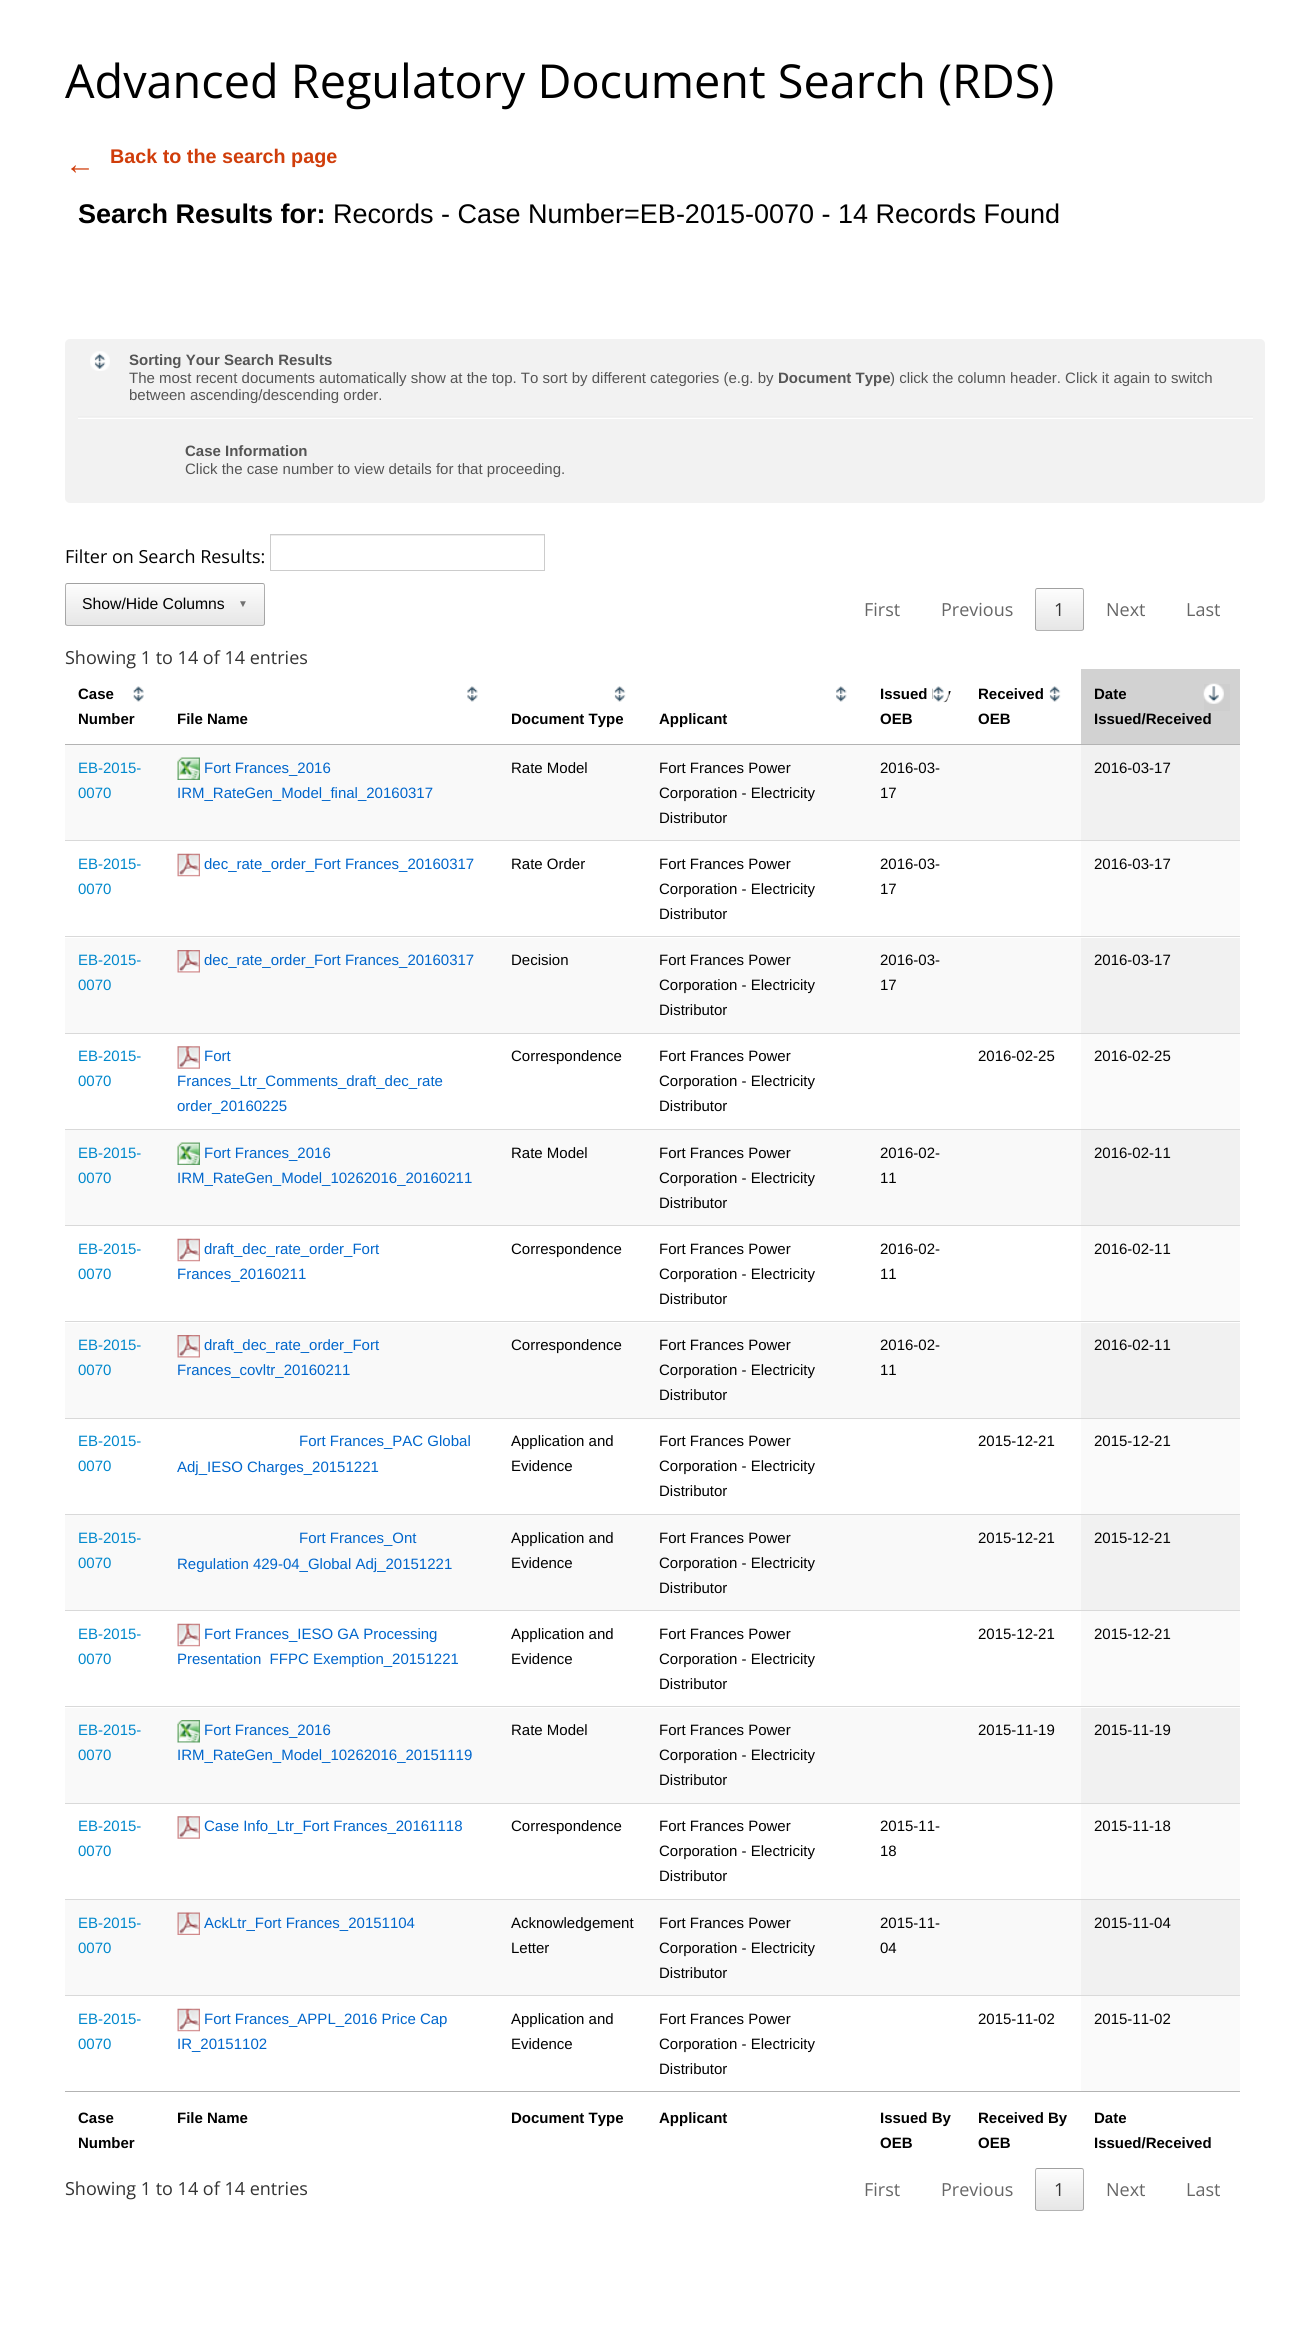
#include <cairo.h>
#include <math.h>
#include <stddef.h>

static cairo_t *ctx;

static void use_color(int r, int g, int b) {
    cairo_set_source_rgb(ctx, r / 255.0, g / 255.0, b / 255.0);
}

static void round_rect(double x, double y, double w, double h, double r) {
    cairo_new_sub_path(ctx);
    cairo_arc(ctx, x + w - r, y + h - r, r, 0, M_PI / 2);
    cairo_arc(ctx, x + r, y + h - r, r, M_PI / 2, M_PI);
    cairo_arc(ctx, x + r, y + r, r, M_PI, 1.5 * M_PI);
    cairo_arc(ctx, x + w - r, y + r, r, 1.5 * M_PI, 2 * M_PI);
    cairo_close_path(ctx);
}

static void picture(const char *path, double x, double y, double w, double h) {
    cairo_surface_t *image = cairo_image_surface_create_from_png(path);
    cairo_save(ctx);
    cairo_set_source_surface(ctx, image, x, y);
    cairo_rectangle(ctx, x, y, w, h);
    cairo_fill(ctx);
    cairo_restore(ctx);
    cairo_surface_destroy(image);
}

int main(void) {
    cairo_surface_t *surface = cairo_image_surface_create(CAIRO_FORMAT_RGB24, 1304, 2333);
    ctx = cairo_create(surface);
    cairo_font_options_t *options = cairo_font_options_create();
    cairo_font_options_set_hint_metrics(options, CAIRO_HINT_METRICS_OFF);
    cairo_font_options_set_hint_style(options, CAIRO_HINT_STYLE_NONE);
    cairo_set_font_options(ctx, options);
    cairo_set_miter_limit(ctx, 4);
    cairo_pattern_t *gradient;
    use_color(255, 255, 255);
    cairo_paint(ctx);
    cairo_select_font_face(ctx, "Open Sans", CAIRO_FONT_SLANT_NORMAL, CAIRO_FONT_WEIGHT_NORMAL);
    cairo_set_font_size(ctx, 46.8);
    use_color(0, 0, 0);
    cairo_move_to(ctx, 65, 98);
    cairo_show_text(ctx, "Advanced Regulatory Document Search (RDS)");
    cairo_select_font_face(ctx, "Liberation Sans", CAIRO_FONT_SLANT_NORMAL, CAIRO_FONT_WEIGHT_BOLD);
    cairo_set_font_size(ctx, 19.75);
    use_color(208, 61, 10);
    cairo_move_to(ctx, 110, 163);
    cairo_show_text(ctx, "Back to the search page");
    cairo_select_font_face(ctx, "Liberation Sans", CAIRO_FONT_SLANT_NORMAL, CAIRO_FONT_WEIGHT_NORMAL);
    cairo_set_font_size(ctx, 30);
    cairo_save(ctx);
    cairo_translate(ctx, 95, 164);
    cairo_rotate(ctx, 180 * M_PI / 180);
    cairo_move_to(ctx, 0, 0);
    cairo_show_text(ctx, "→");
    cairo_restore(ctx);
    cairo_select_font_face(ctx, "Liberation Sans", CAIRO_FONT_SLANT_NORMAL, CAIRO_FONT_WEIGHT_BOLD);
    cairo_set_font_size(ctx, 27);
    use_color(0, 0, 0);
    cairo_move_to(ctx, 78, 223);
    cairo_show_text(ctx, "Search Results for:");
    cairo_select_font_face(ctx, "Liberation Sans", CAIRO_FONT_SLANT_NORMAL, CAIRO_FONT_WEIGHT_NORMAL);
    cairo_move_to(ctx, 333, 223);
    cairo_show_text(ctx, "Records - Case Number=EB-2015-0070 - 14 Records Found");
    use_color(242, 242, 242);
    round_rect(65, 339, 1200, 164, 5);
    cairo_fill(ctx);
    picture("img1.png", 90, 351, 20, 20);
    cairo_select_font_face(ctx, "Liberation Sans", CAIRO_FONT_SLANT_NORMAL, CAIRO_FONT_WEIGHT_BOLD);
    cairo_set_font_size(ctx, 15);
    use_color(85, 85, 85);
    cairo_move_to(ctx, 129, 365);
    cairo_show_text(ctx, "Sorting Your Search Results");
    cairo_select_font_face(ctx, "Liberation Sans", CAIRO_FONT_SLANT_NORMAL, CAIRO_FONT_WEIGHT_NORMAL);
    cairo_move_to(ctx, 129, 383);
    cairo_show_text(ctx, "The most recent documents automatically show at the top. To sort by different categories (e.g. by");
    cairo_select_font_face(ctx, "Liberation Sans", CAIRO_FONT_SLANT_NORMAL, CAIRO_FONT_WEIGHT_BOLD);
    cairo_move_to(ctx, 778, 383);
    cairo_show_text(ctx, "Document Type");
    cairo_select_font_face(ctx, "Liberation Sans", CAIRO_FONT_SLANT_NORMAL, CAIRO_FONT_WEIGHT_NORMAL);
    cairo_move_to(ctx, 890, 383);
    cairo_show_text(ctx, ") click the column header. Click it again to switch");
    cairo_move_to(ctx, 129, 400);
    cairo_show_text(ctx, "between ascending/descending order.");
    use_color(238, 238, 238);
    cairo_rectangle(ctx, 78, 416, 1175, 1);
    cairo_fill(ctx);
    use_color(255, 255, 255);
    cairo_rectangle(ctx, 78, 418, 1175, 1);
    cairo_fill(ctx);
    cairo_select_font_face(ctx, "Liberation Sans", CAIRO_FONT_SLANT_NORMAL, CAIRO_FONT_WEIGHT_BOLD);
    use_color(85, 85, 85);
    cairo_move_to(ctx, 185, 456);
    cairo_show_text(ctx, "Case Information");
    cairo_select_font_face(ctx, "Liberation Sans", CAIRO_FONT_SLANT_NORMAL, CAIRO_FONT_WEIGHT_NORMAL);
    cairo_move_to(ctx, 185, 474);
    cairo_show_text(ctx, "Click the case number to view details for that proceeding.");
    cairo_select_font_face(ctx, "Open Sans", CAIRO_FONT_SLANT_NORMAL, CAIRO_FONT_WEIGHT_NORMAL);
    cairo_set_font_size(ctx, 18);
    use_color(0, 0, 0);
    cairo_move_to(ctx, 65, 563);
    cairo_show_text(ctx, "Filter on Search Results:");
    use_color(236, 236, 236);
    cairo_rectangle(ctx, 271, 535, 273, 1);
    cairo_fill(ctx);
    cairo_rectangle(ctx, 270.5, 534.5, 274, 36);
    use_color(204, 204, 204);
    cairo_set_line_width(ctx, 1);
    cairo_stroke(ctx);
    cairo_save(ctx);
    round_rect(65, 583, 200, 43, 2.5);
    cairo_clip(ctx);
    gradient = cairo_pattern_create_linear(165, 543, 165, 584);
    cairo_pattern_add_color_stop_rgba(gradient, 0, 0.992, 0.992, 0.992, 1);
    cairo_pattern_add_color_stop_rgba(gradient, 1, 0.902, 0.902, 0.902, 1);
    cairo_set_source(ctx, gradient);
    cairo_pattern_destroy(gradient);
    cairo_rectangle(ctx, 65, 583, 200, 1);
    cairo_fill(ctx);
    gradient = cairo_pattern_create_linear(165, 584, 165, 625);
    cairo_pattern_add_color_stop_rgba(gradient, 0, 0.992, 0.992, 0.992, 1);
    cairo_pattern_add_color_stop_rgba(gradient, 1, 0.902, 0.902, 0.902, 1);
    cairo_set_source(ctx, gradient);
    cairo_pattern_destroy(gradient);
    cairo_rectangle(ctx, 65, 584, 200, 41);
    cairo_fill(ctx);
    cairo_restore(ctx);
    round_rect(65.5, 583.5, 199, 42, 2);
    cairo_set_source_rgba(ctx, 0, 0, 0, 0.3);
    cairo_stroke(ctx);
    cairo_select_font_face(ctx, "Liberation Sans", CAIRO_FONT_SLANT_NORMAL, CAIRO_FONT_WEIGHT_NORMAL);
    cairo_set_font_size(ctx, 15.75);
    use_color(0, 0, 0);
    cairo_move_to(ctx, 82, 609);
    cairo_show_text(ctx, "Show/Hide Columns");
    cairo_set_font_size(ctx, 10);
    use_color(113, 113, 113);
    cairo_move_to(ctx, 238, 607);
    cairo_show_text(ctx, "▼");
    cairo_select_font_face(ctx, "Open Sans", CAIRO_FONT_SLANT_NORMAL, CAIRO_FONT_WEIGHT_NORMAL);
    cairo_set_font_size(ctx, 18);
    use_color(102, 102, 102);
    cairo_move_to(ctx, 864, 616);
    cairo_show_text(ctx, "First");
    cairo_move_to(ctx, 941, 616);
    cairo_show_text(ctx, "Previous");
    cairo_save(ctx);
    round_rect(1035, 588, 49, 43, 2.5);
    cairo_clip(ctx);
    gradient = cairo_pattern_create_linear(1059, 548, 1059, 589);
    cairo_pattern_add_color_stop_rgba(gradient, 0, 0.992, 0.992, 0.992, 1);
    cairo_pattern_add_color_stop_rgba(gradient, 1, 0.902, 0.902, 0.902, 1);
    cairo_set_source(ctx, gradient);
    cairo_pattern_destroy(gradient);
    cairo_rectangle(ctx, 1035, 588, 49, 1);
    cairo_fill(ctx);
    gradient = cairo_pattern_create_linear(1059, 589, 1059, 630);
    cairo_pattern_add_color_stop_rgba(gradient, 0, 0.992, 0.992, 0.992, 1);
    cairo_pattern_add_color_stop_rgba(gradient, 1, 0.902, 0.902, 0.902, 1);
    cairo_set_source(ctx, gradient);
    cairo_pattern_destroy(gradient);
    cairo_rectangle(ctx, 1035, 589, 49, 41);
    cairo_fill(ctx);
    cairo_restore(ctx);
    round_rect(1035.5, 588.5, 48, 42, 2);
    cairo_set_source_rgba(ctx, 0, 0, 0, 0.3);
    cairo_stroke(ctx);
    use_color(51, 51, 51);
    cairo_move_to(ctx, 1054, 616);
    cairo_show_text(ctx, "1");
    use_color(102, 102, 102);
    cairo_move_to(ctx, 1106, 616);
    cairo_show_text(ctx, "Next");
    cairo_move_to(ctx, 1186, 616);
    cairo_show_text(ctx, "Last");
    use_color(51, 51, 51);
    cairo_move_to(ctx, 65, 664);
    cairo_show_text(ctx, "Showing 1 to 14 of 14 entries");
    use_color(179, 179, 179);
    cairo_rectangle(ctx, 65, 744, 1175, 1);
    cairo_fill(ctx);
    cairo_select_font_face(ctx, "Liberation Sans", CAIRO_FONT_SLANT_NORMAL, CAIRO_FONT_WEIGHT_BOLD);
    cairo_set_font_size(ctx, 15);
    use_color(0, 0, 0);
    cairo_move_to(ctx, 78, 699);
    cairo_show_text(ctx, "Case");
    picture("img2.png", 133, 686, 11, 16);
    cairo_move_to(ctx, 78, 724);
    cairo_show_text(ctx, "Number");
    picture("img3.png", 467, 686, 11, 16);
    cairo_move_to(ctx, 177, 724);
    cairo_show_text(ctx, "File Name");
    picture("img4.png", 614, 686, 12, 16);
    cairo_move_to(ctx, 511, 724);
    cairo_show_text(ctx, "Document Type");
    picture("img5.png", 836, 686, 11, 16);
    cairo_move_to(ctx, 659, 724);
    cairo_show_text(ctx, "Applicant");
    cairo_move_to(ctx, 880, 699);
    cairo_show_text(ctx, "Issued By");
    picture("img6.png", 933, 686, 16, 17);
    cairo_move_to(ctx, 880, 724);
    cairo_show_text(ctx, "OEB");
    cairo_move_to(ctx, 978, 699);
    cairo_show_text(ctx, "Received");
    picture("img7.png", 1049, 686, 17, 17);
    cairo_move_to(ctx, 978, 724);
    cairo_show_text(ctx, "OEB");
    use_color(210, 210, 210);
    cairo_rectangle(ctx, 1081, 669, 159, 75);
    cairo_fill(ctx);
    use_color(0, 0, 0);
    cairo_move_to(ctx, 1094, 699);
    cairo_show_text(ctx, "Date");
    use_color(206, 206, 206);
    cairo_rectangle(ctx, 1204, 684, 26, 27);
    cairo_fill(ctx);
    picture("img8.png", 1203, 683, 21, 21);
    use_color(0, 0, 0);
    cairo_move_to(ctx, 1094, 724);
    cairo_show_text(ctx, "Issued/Received");
    use_color(249, 249, 249);
    cairo_rectangle(ctx, 65, 745, 1016, 95);
    cairo_fill(ctx);
    cairo_select_font_face(ctx, "Liberation Sans", CAIRO_FONT_SLANT_NORMAL, CAIRO_FONT_WEIGHT_NORMAL);
    use_color(0, 136, 204);
    cairo_move_to(ctx, 78, 773);
    cairo_show_text(ctx, "EB-2015-");
    cairo_move_to(ctx, 78, 798);
    cairo_show_text(ctx, "0070");
    picture("img9.png", 177, 757, 23, 23);
    use_color(0, 102, 204);
    cairo_move_to(ctx, 204, 773);
    cairo_show_text(ctx, "Fort Frances_2016");
    cairo_move_to(ctx, 177, 798);
    cairo_show_text(ctx, "IRM_RateGen_Model_final_20160317");
    use_color(0, 0, 0);
    cairo_move_to(ctx, 511, 773);
    cairo_show_text(ctx, "Rate Model");
    cairo_move_to(ctx, 659, 773);
    cairo_show_text(ctx, "Fort Frances Power");
    cairo_move_to(ctx, 659, 798);
    cairo_show_text(ctx, "Corporation - Electricity");
    cairo_move_to(ctx, 659, 823);
    cairo_show_text(ctx, "Distributor");
    cairo_move_to(ctx, 880, 773);
    cairo_show_text(ctx, "2016-03-");
    cairo_move_to(ctx, 880, 798);
    cairo_show_text(ctx, "17");
    use_color(241, 241, 241);
    cairo_rectangle(ctx, 1081, 745, 159, 95);
    cairo_fill(ctx);
    use_color(0, 0, 0);
    cairo_move_to(ctx, 1094, 773);
    cairo_show_text(ctx, "2016-03-17");
    use_color(217, 217, 217);
    cairo_rectangle(ctx, 65, 840, 1175, 1);
    cairo_fill(ctx);
    use_color(0, 136, 204);
    cairo_move_to(ctx, 78, 869);
    cairo_show_text(ctx, "EB-2015-");
    cairo_move_to(ctx, 78, 894);
    cairo_show_text(ctx, "0070");
    picture("img10.png", 177, 853, 23, 24);
    use_color(0, 102, 204);
    cairo_move_to(ctx, 204, 869);
    cairo_show_text(ctx, "dec_rate_order_Fort Frances_20160317");
    use_color(0, 0, 0);
    cairo_move_to(ctx, 511, 869);
    cairo_show_text(ctx, "Rate Order");
    cairo_move_to(ctx, 659, 869);
    cairo_show_text(ctx, "Fort Frances Power");
    cairo_move_to(ctx, 659, 894);
    cairo_show_text(ctx, "Corporation - Electricity");
    cairo_move_to(ctx, 659, 919);
    cairo_show_text(ctx, "Distributor");
    cairo_move_to(ctx, 880, 869);
    cairo_show_text(ctx, "2016-03-");
    cairo_move_to(ctx, 880, 894);
    cairo_show_text(ctx, "17");
    use_color(250, 250, 250);
    cairo_rectangle(ctx, 1081, 841, 159, 95);
    cairo_fill(ctx);
    use_color(0, 0, 0);
    cairo_move_to(ctx, 1094, 869);
    cairo_show_text(ctx, "2016-03-17");
    use_color(249, 249, 249);
    cairo_rectangle(ctx, 65, 938, 1016, 95);
    cairo_fill(ctx);
    use_color(217, 217, 217);
    cairo_rectangle(ctx, 65, 936, 1175, 1);
    cairo_fill(ctx);
    use_color(0, 136, 204);
    cairo_move_to(ctx, 78, 965);
    cairo_show_text(ctx, "EB-2015-");
    cairo_move_to(ctx, 78, 990);
    cairo_show_text(ctx, "0070");
    picture("img11.png", 177, 950, 23, 23);
    use_color(0, 102, 204);
    cairo_move_to(ctx, 204, 965);
    cairo_show_text(ctx, "dec_rate_order_Fort Frances_20160317");
    use_color(0, 0, 0);
    cairo_move_to(ctx, 511, 965);
    cairo_show_text(ctx, "Decision");
    cairo_move_to(ctx, 659, 965);
    cairo_show_text(ctx, "Fort Frances Power");
    cairo_move_to(ctx, 659, 990);
    cairo_show_text(ctx, "Corporation - Electricity");
    cairo_move_to(ctx, 659, 1015);
    cairo_show_text(ctx, "Distributor");
    cairo_move_to(ctx, 880, 965);
    cairo_show_text(ctx, "2016-03-");
    cairo_move_to(ctx, 880, 990);
    cairo_show_text(ctx, "17");
    use_color(241, 241, 241);
    cairo_rectangle(ctx, 1081, 938, 159, 95);
    cairo_fill(ctx);
    use_color(0, 0, 0);
    cairo_move_to(ctx, 1094, 965);
    cairo_show_text(ctx, "2016-03-17");
    use_color(217, 217, 217);
    cairo_rectangle(ctx, 65, 1033, 1175, 1);
    cairo_fill(ctx);
    use_color(0, 136, 204);
    cairo_move_to(ctx, 78, 1061);
    cairo_show_text(ctx, "EB-2015-");
    cairo_move_to(ctx, 78, 1086);
    cairo_show_text(ctx, "0070");
    picture("img12.png", 177, 1046, 23, 23);
    use_color(0, 102, 204);
    cairo_move_to(ctx, 204, 1061);
    cairo_show_text(ctx, "Fort");
    cairo_move_to(ctx, 177, 1086);
    cairo_show_text(ctx, "Frances_Ltr_Comments_draft_dec_rate");
    cairo_move_to(ctx, 177, 1111);
    cairo_show_text(ctx, "order_20160225");
    use_color(0, 0, 0);
    cairo_move_to(ctx, 511, 1061);
    cairo_show_text(ctx, "Correspondence");
    cairo_move_to(ctx, 659, 1061);
    cairo_show_text(ctx, "Fort Frances Power");
    cairo_move_to(ctx, 659, 1086);
    cairo_show_text(ctx, "Corporation - Electricity");
    cairo_move_to(ctx, 659, 1111);
    cairo_show_text(ctx, "Distributor");
    cairo_move_to(ctx, 978, 1061);
    cairo_show_text(ctx, "2016-02-25");
    use_color(250, 250, 250);
    cairo_rectangle(ctx, 1081, 1034, 159, 95);
    cairo_fill(ctx);
    use_color(0, 0, 0);
    cairo_move_to(ctx, 1094, 1061);
    cairo_show_text(ctx, "2016-02-25");
    use_color(249, 249, 249);
    cairo_rectangle(ctx, 65, 1130, 1016, 95);
    cairo_fill(ctx);
    use_color(217, 217, 217);
    cairo_rectangle(ctx, 65, 1129, 1175, 1);
    cairo_fill(ctx);
    use_color(0, 136, 204);
    cairo_move_to(ctx, 78, 1158);
    cairo_show_text(ctx, "EB-2015-");
    cairo_move_to(ctx, 78, 1183);
    cairo_show_text(ctx, "0070");
    picture("img9.png", 177, 1142, 23, 23);
    use_color(0, 102, 204);
    cairo_move_to(ctx, 204, 1158);
    cairo_show_text(ctx, "Fort Frances_2016");
    cairo_move_to(ctx, 177, 1183);
    cairo_show_text(ctx, "IRM_RateGen_Model_10262016_20160211");
    use_color(0, 0, 0);
    cairo_move_to(ctx, 511, 1158);
    cairo_show_text(ctx, "Rate Model");
    cairo_move_to(ctx, 659, 1158);
    cairo_show_text(ctx, "Fort Frances Power");
    cairo_move_to(ctx, 659, 1183);
    cairo_show_text(ctx, "Corporation - Electricity");
    cairo_move_to(ctx, 659, 1208);
    cairo_show_text(ctx, "Distributor");
    cairo_move_to(ctx, 880, 1158);
    cairo_show_text(ctx, "2016-02-");
    cairo_move_to(ctx, 880, 1183);
    cairo_show_text(ctx, "11");
    use_color(241, 241, 241);
    cairo_rectangle(ctx, 1081, 1130, 159, 95);
    cairo_fill(ctx);
    use_color(0, 0, 0);
    cairo_move_to(ctx, 1094, 1158);
    cairo_show_text(ctx, "2016-02-11");
    use_color(217, 217, 217);
    cairo_rectangle(ctx, 65, 1225, 1175, 1);
    cairo_fill(ctx);
    use_color(0, 136, 204);
    cairo_move_to(ctx, 78, 1254);
    cairo_show_text(ctx, "EB-2015-");
    cairo_move_to(ctx, 78, 1279);
    cairo_show_text(ctx, "0070");
    picture("img10.png", 177, 1238, 23, 24);
    use_color(0, 102, 204);
    cairo_move_to(ctx, 204, 1254);
    cairo_show_text(ctx, "draft_dec_rate_order_Fort");
    cairo_move_to(ctx, 177, 1279);
    cairo_show_text(ctx, "Frances_20160211");
    use_color(0, 0, 0);
    cairo_move_to(ctx, 511, 1254);
    cairo_show_text(ctx, "Correspondence");
    cairo_move_to(ctx, 659, 1254);
    cairo_show_text(ctx, "Fort Frances Power");
    cairo_move_to(ctx, 659, 1279);
    cairo_show_text(ctx, "Corporation - Electricity");
    cairo_move_to(ctx, 659, 1304);
    cairo_show_text(ctx, "Distributor");
    cairo_move_to(ctx, 880, 1254);
    cairo_show_text(ctx, "2016-02-");
    cairo_move_to(ctx, 880, 1279);
    cairo_show_text(ctx, "11");
    use_color(250, 250, 250);
    cairo_rectangle(ctx, 1081, 1226, 159, 95);
    cairo_fill(ctx);
    use_color(0, 0, 0);
    cairo_move_to(ctx, 1094, 1254);
    cairo_show_text(ctx, "2016-02-11");
    use_color(249, 249, 249);
    cairo_rectangle(ctx, 65, 1323, 1016, 95);
    cairo_fill(ctx);
    use_color(217, 217, 217);
    cairo_rectangle(ctx, 65, 1321, 1175, 1);
    cairo_fill(ctx);
    use_color(0, 136, 204);
    cairo_move_to(ctx, 78, 1350);
    cairo_show_text(ctx, "EB-2015-");
    cairo_move_to(ctx, 78, 1375);
    cairo_show_text(ctx, "0070");
    picture("img11.png", 177, 1335, 23, 23);
    use_color(0, 102, 204);
    cairo_move_to(ctx, 204, 1350);
    cairo_show_text(ctx, "draft_dec_rate_order_Fort");
    cairo_move_to(ctx, 177, 1375);
    cairo_show_text(ctx, "Frances_covltr_20160211");
    use_color(0, 0, 0);
    cairo_move_to(ctx, 511, 1350);
    cairo_show_text(ctx, "Correspondence");
    cairo_move_to(ctx, 659, 1350);
    cairo_show_text(ctx, "Fort Frances Power");
    cairo_move_to(ctx, 659, 1375);
    cairo_show_text(ctx, "Corporation - Electricity");
    cairo_move_to(ctx, 659, 1400);
    cairo_show_text(ctx, "Distributor");
    cairo_move_to(ctx, 880, 1350);
    cairo_show_text(ctx, "2016-02-");
    cairo_move_to(ctx, 880, 1375);
    cairo_show_text(ctx, "11");
    use_color(241, 241, 241);
    cairo_rectangle(ctx, 1081, 1323, 159, 95);
    cairo_fill(ctx);
    use_color(0, 0, 0);
    cairo_move_to(ctx, 1094, 1350);
    cairo_show_text(ctx, "2016-02-11");
    use_color(217, 217, 217);
    cairo_rectangle(ctx, 65, 1418, 1175, 1);
    cairo_fill(ctx);
    use_color(0, 136, 204);
    cairo_move_to(ctx, 78, 1446);
    cairo_show_text(ctx, "EB-2015-");
    cairo_move_to(ctx, 78, 1471);
    cairo_show_text(ctx, "0070");
    use_color(0, 102, 204);
    cairo_move_to(ctx, 299, 1446);
    cairo_show_text(ctx, "Fort Frances_PAC Global");
    cairo_move_to(ctx, 177, 1472);
    cairo_show_text(ctx, "Adj_IESO Charges_20151221");
    use_color(0, 0, 0);
    cairo_move_to(ctx, 511, 1446);
    cairo_show_text(ctx, "Application and");
    cairo_move_to(ctx, 511, 1471);
    cairo_show_text(ctx, "Evidence");
    cairo_move_to(ctx, 659, 1446);
    cairo_show_text(ctx, "Fort Frances Power");
    cairo_move_to(ctx, 659, 1471);
    cairo_show_text(ctx, "Corporation - Electricity");
    cairo_move_to(ctx, 659, 1496);
    cairo_show_text(ctx, "Distributor");
    cairo_move_to(ctx, 978, 1446);
    cairo_show_text(ctx, "2015-12-21");
    use_color(250, 250, 250);
    cairo_rectangle(ctx, 1081, 1419, 159, 95);
    cairo_fill(ctx);
    use_color(0, 0, 0);
    cairo_move_to(ctx, 1094, 1446);
    cairo_show_text(ctx, "2015-12-21");
    use_color(249, 249, 249);
    cairo_rectangle(ctx, 65, 1515, 1016, 95);
    cairo_fill(ctx);
    use_color(217, 217, 217);
    cairo_rectangle(ctx, 65, 1514, 1175, 1);
    cairo_fill(ctx);
    use_color(0, 136, 204);
    cairo_move_to(ctx, 78, 1543);
    cairo_show_text(ctx, "EB-2015-");
    cairo_move_to(ctx, 78, 1568);
    cairo_show_text(ctx, "0070");
    use_color(0, 102, 204);
    cairo_move_to(ctx, 299, 1543);
    cairo_show_text(ctx, "Fort Frances_Ont");
    cairo_move_to(ctx, 177, 1569);
    cairo_show_text(ctx, "Regulation 429-04_Global Adj_20151221");
    use_color(0, 0, 0);
    cairo_move_to(ctx, 511, 1543);
    cairo_show_text(ctx, "Application and");
    cairo_move_to(ctx, 511, 1568);
    cairo_show_text(ctx, "Evidence");
    cairo_move_to(ctx, 659, 1543);
    cairo_show_text(ctx, "Fort Frances Power");
    cairo_move_to(ctx, 659, 1568);
    cairo_show_text(ctx, "Corporation - Electricity");
    cairo_move_to(ctx, 659, 1593);
    cairo_show_text(ctx, "Distributor");
    cairo_move_to(ctx, 978, 1543);
    cairo_show_text(ctx, "2015-12-21");
    use_color(241, 241, 241);
    cairo_rectangle(ctx, 1081, 1515, 159, 95);
    cairo_fill(ctx);
    use_color(0, 0, 0);
    cairo_move_to(ctx, 1094, 1543);
    cairo_show_text(ctx, "2015-12-21");
    use_color(217, 217, 217);
    cairo_rectangle(ctx, 65, 1610, 1175, 1);
    cairo_fill(ctx);
    use_color(0, 136, 204);
    cairo_move_to(ctx, 78, 1639);
    cairo_show_text(ctx, "EB-2015-");
    cairo_move_to(ctx, 78, 1664);
    cairo_show_text(ctx, "0070");
    picture("img10.png", 177, 1623, 23, 24);
    use_color(0, 102, 204);
    cairo_move_to(ctx, 204, 1639);
    cairo_show_text(ctx, "Fort Frances_IESO GA Processing");
    cairo_move_to(ctx, 177, 1664);
    cairo_show_text(ctx, "Presentation  FFPC Exemption_20151221");
    use_color(0, 0, 0);
    cairo_move_to(ctx, 511, 1639);
    cairo_show_text(ctx, "Application and");
    cairo_move_to(ctx, 511, 1664);
    cairo_show_text(ctx, "Evidence");
    cairo_move_to(ctx, 659, 1639);
    cairo_show_text(ctx, "Fort Frances Power");
    cairo_move_to(ctx, 659, 1664);
    cairo_show_text(ctx, "Corporation - Electricity");
    cairo_move_to(ctx, 659, 1689);
    cairo_show_text(ctx, "Distributor");
    cairo_move_to(ctx, 978, 1639);
    cairo_show_text(ctx, "2015-12-21");
    use_color(250, 250, 250);
    cairo_rectangle(ctx, 1081, 1611, 159, 95);
    cairo_fill(ctx);
    use_color(0, 0, 0);
    cairo_move_to(ctx, 1094, 1639);
    cairo_show_text(ctx, "2015-12-21");
    use_color(249, 249, 249);
    cairo_rectangle(ctx, 65, 1708, 1016, 95);
    cairo_fill(ctx);
    use_color(217, 217, 217);
    cairo_rectangle(ctx, 65, 1706, 1175, 1);
    cairo_fill(ctx);
    use_color(0, 136, 204);
    cairo_move_to(ctx, 78, 1735);
    cairo_show_text(ctx, "EB-2015-");
    cairo_move_to(ctx, 78, 1760);
    cairo_show_text(ctx, "0070");
    picture("img13.png", 177, 1720, 23, 23);
    use_color(0, 102, 204);
    cairo_move_to(ctx, 204, 1735);
    cairo_show_text(ctx, "Fort Frances_2016");
    cairo_move_to(ctx, 177, 1760);
    cairo_show_text(ctx, "IRM_RateGen_Model_10262016_20151119");
    use_color(0, 0, 0);
    cairo_move_to(ctx, 511, 1735);
    cairo_show_text(ctx, "Rate Model");
    cairo_move_to(ctx, 659, 1735);
    cairo_show_text(ctx, "Fort Frances Power");
    cairo_move_to(ctx, 659, 1760);
    cairo_show_text(ctx, "Corporation - Electricity");
    cairo_move_to(ctx, 659, 1785);
    cairo_show_text(ctx, "Distributor");
    cairo_move_to(ctx, 978, 1735);
    cairo_show_text(ctx, "2015-11-19");
    use_color(241, 241, 241);
    cairo_rectangle(ctx, 1081, 1708, 159, 95);
    cairo_fill(ctx);
    use_color(0, 0, 0);
    cairo_move_to(ctx, 1094, 1735);
    cairo_show_text(ctx, "2015-11-19");
    use_color(217, 217, 217);
    cairo_rectangle(ctx, 65, 1803, 1175, 1);
    cairo_fill(ctx);
    use_color(0, 136, 204);
    cairo_move_to(ctx, 78, 1831);
    cairo_show_text(ctx, "EB-2015-");
    cairo_move_to(ctx, 78, 1856);
    cairo_show_text(ctx, "0070");
    picture("img12.png", 177, 1816, 23, 23);
    use_color(0, 102, 204);
    cairo_move_to(ctx, 204, 1831);
    cairo_show_text(ctx, "Case Info_Ltr_Fort Frances_20161118");
    use_color(0, 0, 0);
    cairo_move_to(ctx, 511, 1831);
    cairo_show_text(ctx, "Correspondence");
    cairo_move_to(ctx, 659, 1831);
    cairo_show_text(ctx, "Fort Frances Power");
    cairo_move_to(ctx, 659, 1856);
    cairo_show_text(ctx, "Corporation - Electricity");
    cairo_move_to(ctx, 659, 1881);
    cairo_show_text(ctx, "Distributor");
    cairo_move_to(ctx, 880, 1831);
    cairo_show_text(ctx, "2015-11-");
    cairo_move_to(ctx, 880, 1856);
    cairo_show_text(ctx, "18");
    use_color(250, 250, 250);
    cairo_rectangle(ctx, 1081, 1804, 159, 95);
    cairo_fill(ctx);
    use_color(0, 0, 0);
    cairo_move_to(ctx, 1094, 1831);
    cairo_show_text(ctx, "2015-11-18");
    use_color(249, 249, 249);
    cairo_rectangle(ctx, 65, 1900, 1016, 95);
    cairo_fill(ctx);
    use_color(217, 217, 217);
    cairo_rectangle(ctx, 65, 1899, 1175, 1);
    cairo_fill(ctx);
    use_color(0, 136, 204);
    cairo_move_to(ctx, 78, 1928);
    cairo_show_text(ctx, "EB-2015-");
    cairo_move_to(ctx, 78, 1953);
    cairo_show_text(ctx, "0070");
    picture("img14.png", 177, 1912, 23, 23);
    use_color(0, 102, 204);
    cairo_move_to(ctx, 204, 1928);
    cairo_show_text(ctx, "AckLtr_Fort Frances_20151104");
    use_color(0, 0, 0);
    cairo_move_to(ctx, 511, 1928);
    cairo_show_text(ctx, "Acknowledgement");
    cairo_move_to(ctx, 511, 1953);
    cairo_show_text(ctx, "Letter");
    cairo_move_to(ctx, 659, 1928);
    cairo_show_text(ctx, "Fort Frances Power");
    cairo_move_to(ctx, 659, 1953);
    cairo_show_text(ctx, "Corporation - Electricity");
    cairo_move_to(ctx, 659, 1978);
    cairo_show_text(ctx, "Distributor");
    cairo_move_to(ctx, 880, 1928);
    cairo_show_text(ctx, "2015-11-");
    cairo_move_to(ctx, 880, 1953);
    cairo_show_text(ctx, "04");
    use_color(241, 241, 241);
    cairo_rectangle(ctx, 1081, 1900, 159, 95);
    cairo_fill(ctx);
    use_color(0, 0, 0);
    cairo_move_to(ctx, 1094, 1928);
    cairo_show_text(ctx, "2015-11-04");
    use_color(217, 217, 217);
    cairo_rectangle(ctx, 65, 1995, 1175, 1);
    cairo_fill(ctx);
    use_color(0, 136, 204);
    cairo_move_to(ctx, 78, 2024);
    cairo_show_text(ctx, "EB-2015-");
    cairo_move_to(ctx, 78, 2049);
    cairo_show_text(ctx, "0070");
    picture("img10.png", 177, 2008, 23, 24);
    use_color(0, 102, 204);
    cairo_move_to(ctx, 204, 2024);
    cairo_show_text(ctx, "Fort Frances_APPL_2016 Price Cap");
    cairo_move_to(ctx, 177, 2049);
    cairo_show_text(ctx, "IR_20151102");
    use_color(0, 0, 0);
    cairo_move_to(ctx, 511, 2024);
    cairo_show_text(ctx, "Application and");
    cairo_move_to(ctx, 511, 2049);
    cairo_show_text(ctx, "Evidence");
    cairo_move_to(ctx, 659, 2024);
    cairo_show_text(ctx, "Fort Frances Power");
    cairo_move_to(ctx, 659, 2049);
    cairo_show_text(ctx, "Corporation - Electricity");
    cairo_move_to(ctx, 659, 2074);
    cairo_show_text(ctx, "Distributor");
    cairo_move_to(ctx, 978, 2024);
    cairo_show_text(ctx, "2015-11-02");
    use_color(250, 250, 250);
    cairo_rectangle(ctx, 1081, 1996, 159, 95);
    cairo_fill(ctx);
    use_color(0, 0, 0);
    cairo_move_to(ctx, 1094, 2024);
    cairo_show_text(ctx, "2015-11-02");
    use_color(179, 179, 179);
    cairo_rectangle(ctx, 65, 2091, 1175, 1);
    cairo_fill(ctx);
    cairo_select_font_face(ctx, "Liberation Sans", CAIRO_FONT_SLANT_NORMAL, CAIRO_FONT_WEIGHT_BOLD);
    use_color(0, 0, 0);
    cairo_move_to(ctx, 78, 2123);
    cairo_show_text(ctx, "Case");
    cairo_move_to(ctx, 78, 2148);
    cairo_show_text(ctx, "Number");
    cairo_move_to(ctx, 177, 2123);
    cairo_show_text(ctx, "File Name");
    cairo_move_to(ctx, 511, 2123);
    cairo_show_text(ctx, "Document Type");
    cairo_move_to(ctx, 659, 2123);
    cairo_show_text(ctx, "Applicant");
    cairo_move_to(ctx, 880, 2123);
    cairo_show_text(ctx, "Issued By");
    cairo_move_to(ctx, 880, 2148);
    cairo_show_text(ctx, "OEB");
    cairo_move_to(ctx, 978, 2123);
    cairo_show_text(ctx, "Received By");
    cairo_move_to(ctx, 978, 2148);
    cairo_show_text(ctx, "OEB");
    cairo_move_to(ctx, 1094, 2123);
    cairo_show_text(ctx, "Date");
    cairo_move_to(ctx, 1094, 2148);
    cairo_show_text(ctx, "Issued/Received");
    cairo_select_font_face(ctx, "Open Sans", CAIRO_FONT_SLANT_NORMAL, CAIRO_FONT_WEIGHT_NORMAL);
    cairo_set_font_size(ctx, 18);
    use_color(51, 51, 51);
    cairo_move_to(ctx, 65, 2195);
    cairo_show_text(ctx, "Showing 1 to 14 of 14 entries");
    use_color(102, 102, 102);
    cairo_move_to(ctx, 864, 2196);
    cairo_show_text(ctx, "First");
    cairo_move_to(ctx, 941, 2196);
    cairo_show_text(ctx, "Previous");
    cairo_save(ctx);
    round_rect(1035, 2168, 49, 43, 2.5);
    cairo_clip(ctx);
    gradient = cairo_pattern_create_linear(1059, 2128, 1059, 2169);
    cairo_pattern_add_color_stop_rgba(gradient, 0, 0.992, 0.992, 0.992, 1);
    cairo_pattern_add_color_stop_rgba(gradient, 1, 0.902, 0.902, 0.902, 1);
    cairo_set_source(ctx, gradient);
    cairo_pattern_destroy(gradient);
    cairo_rectangle(ctx, 1035, 2168, 49, 1);
    cairo_fill(ctx);
    gradient = cairo_pattern_create_linear(1059, 2169, 1059, 2210);
    cairo_pattern_add_color_stop_rgba(gradient, 0, 0.992, 0.992, 0.992, 1);
    cairo_pattern_add_color_stop_rgba(gradient, 1, 0.902, 0.902, 0.902, 1);
    cairo_set_source(ctx, gradient);
    cairo_pattern_destroy(gradient);
    cairo_rectangle(ctx, 1035, 2169, 49, 41);
    cairo_fill(ctx);
    cairo_restore(ctx);
    round_rect(1035.5, 2168.5, 48, 42, 2);
    cairo_set_source_rgba(ctx, 0, 0, 0, 0.3);
    cairo_stroke(ctx);
    use_color(51, 51, 51);
    cairo_move_to(ctx, 1054, 2196);
    cairo_show_text(ctx, "1");
    use_color(102, 102, 102);
    cairo_move_to(ctx, 1106, 2196);
    cairo_show_text(ctx, "Next");
    cairo_move_to(ctx, 1186, 2196);
    cairo_show_text(ctx, "Last");
    cairo_surface_write_to_png(surface, "result.png");
    cairo_font_options_destroy(options);
    cairo_destroy(ctx);
    cairo_surface_destroy(surface);
    return 0;
}
